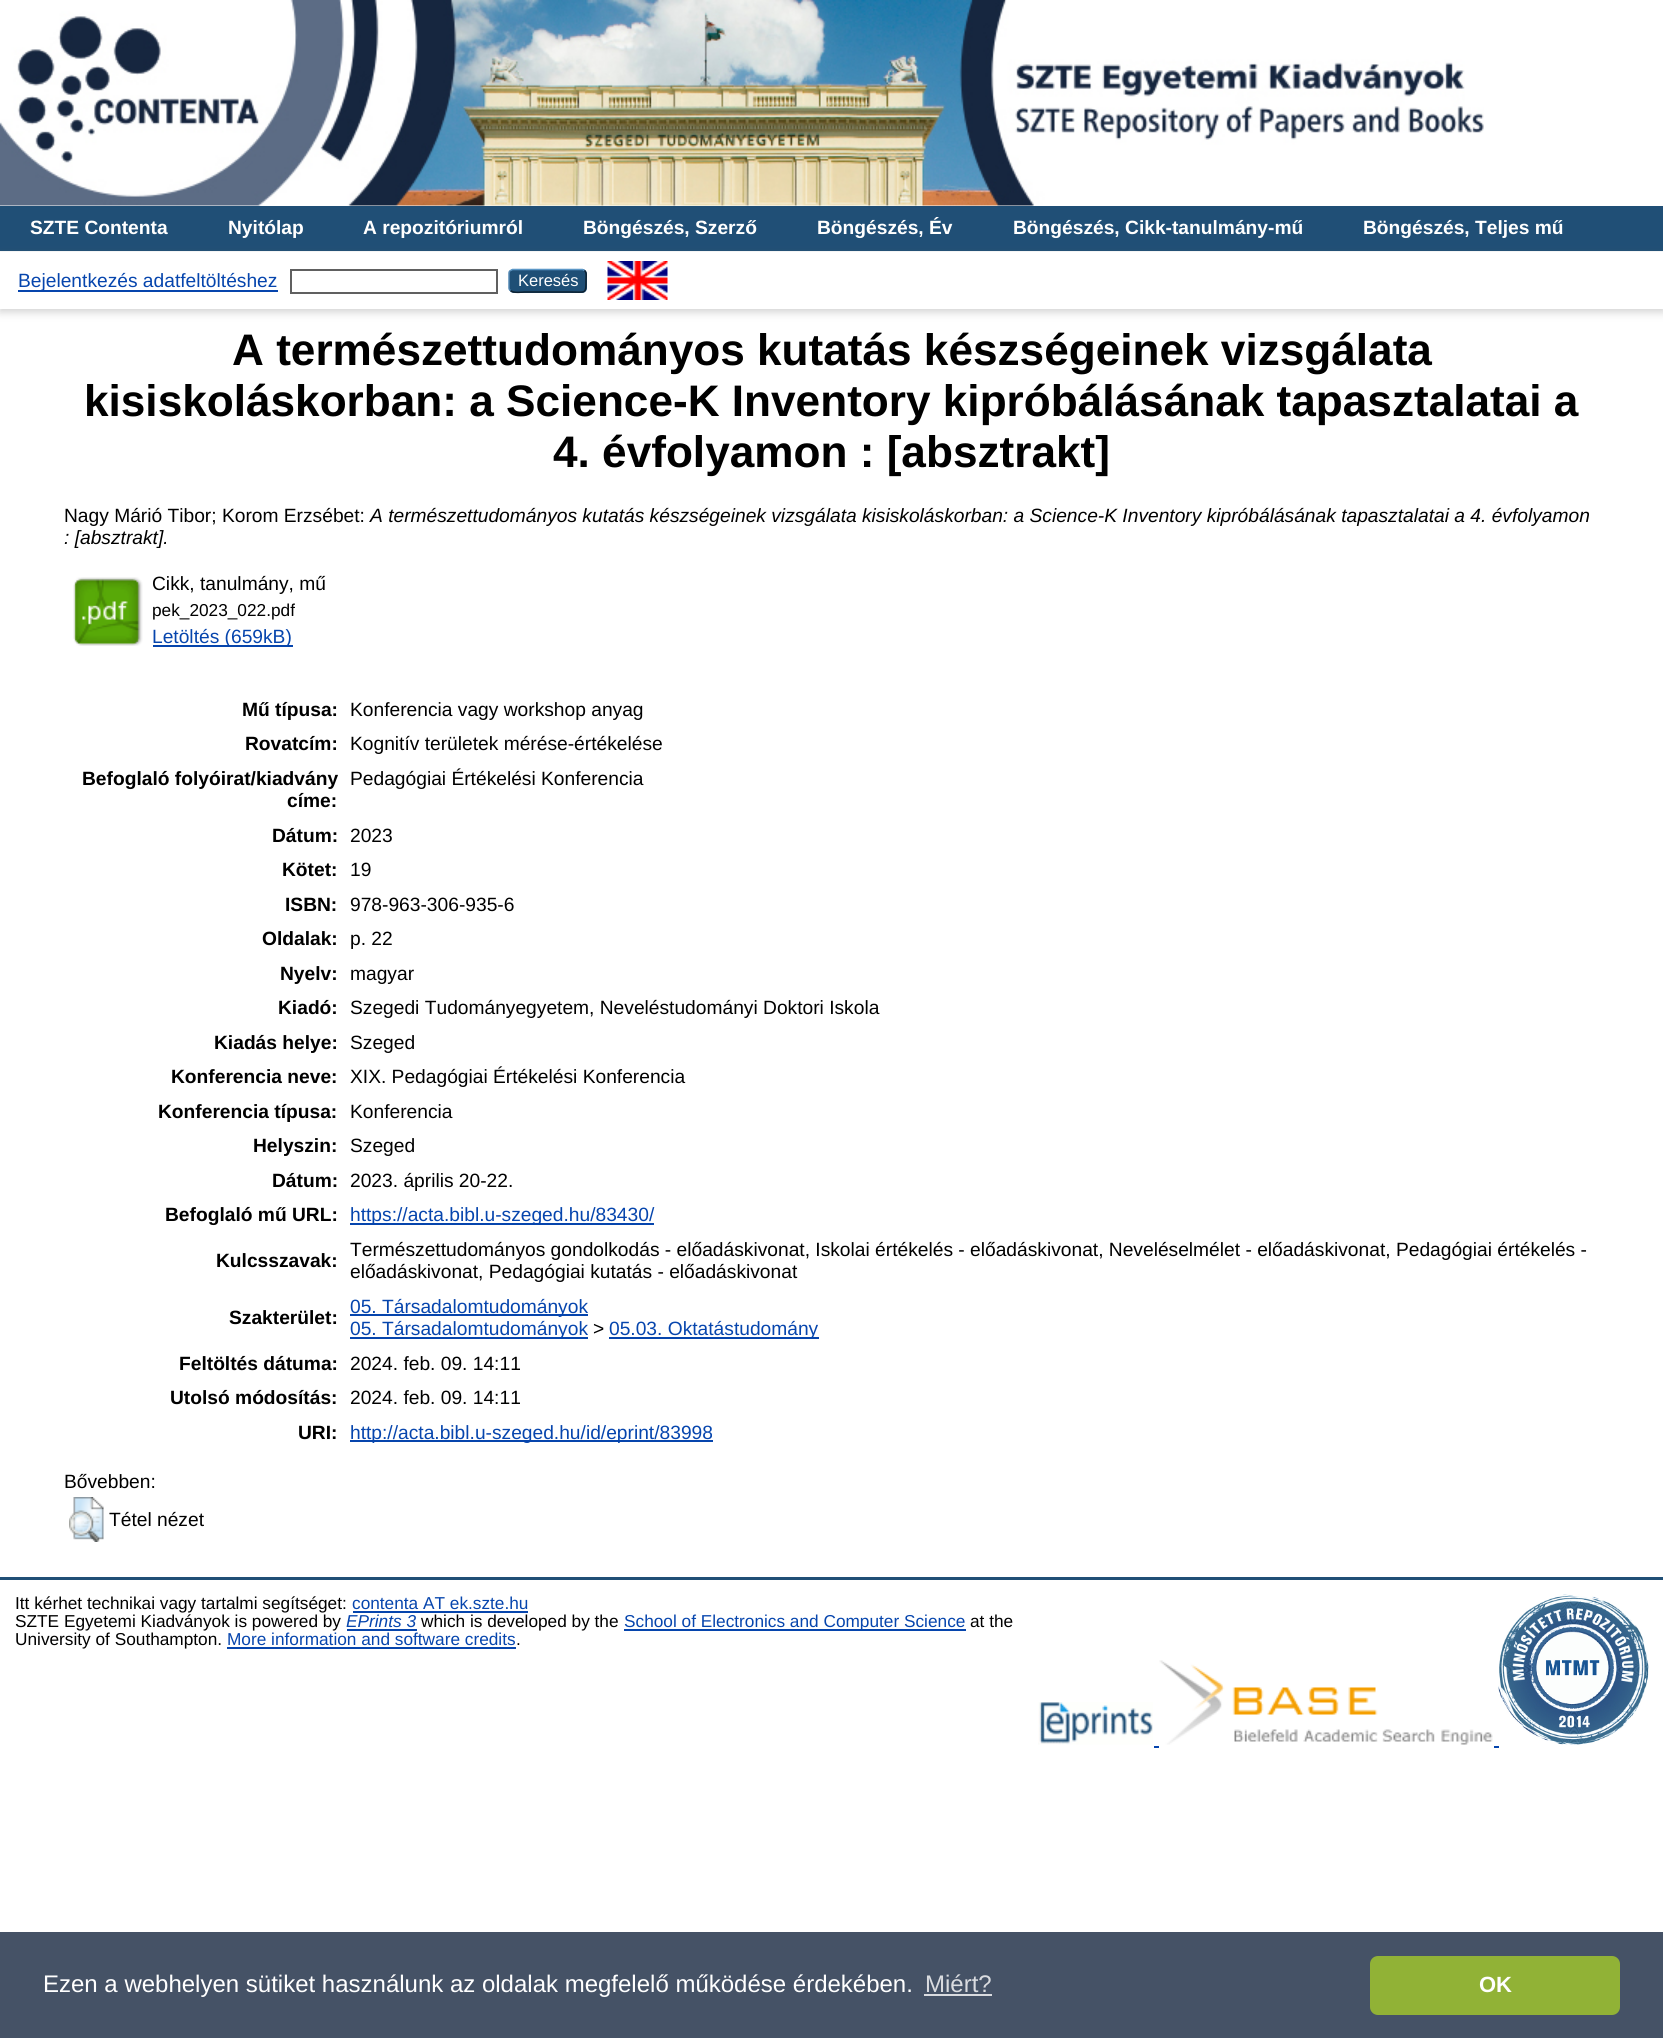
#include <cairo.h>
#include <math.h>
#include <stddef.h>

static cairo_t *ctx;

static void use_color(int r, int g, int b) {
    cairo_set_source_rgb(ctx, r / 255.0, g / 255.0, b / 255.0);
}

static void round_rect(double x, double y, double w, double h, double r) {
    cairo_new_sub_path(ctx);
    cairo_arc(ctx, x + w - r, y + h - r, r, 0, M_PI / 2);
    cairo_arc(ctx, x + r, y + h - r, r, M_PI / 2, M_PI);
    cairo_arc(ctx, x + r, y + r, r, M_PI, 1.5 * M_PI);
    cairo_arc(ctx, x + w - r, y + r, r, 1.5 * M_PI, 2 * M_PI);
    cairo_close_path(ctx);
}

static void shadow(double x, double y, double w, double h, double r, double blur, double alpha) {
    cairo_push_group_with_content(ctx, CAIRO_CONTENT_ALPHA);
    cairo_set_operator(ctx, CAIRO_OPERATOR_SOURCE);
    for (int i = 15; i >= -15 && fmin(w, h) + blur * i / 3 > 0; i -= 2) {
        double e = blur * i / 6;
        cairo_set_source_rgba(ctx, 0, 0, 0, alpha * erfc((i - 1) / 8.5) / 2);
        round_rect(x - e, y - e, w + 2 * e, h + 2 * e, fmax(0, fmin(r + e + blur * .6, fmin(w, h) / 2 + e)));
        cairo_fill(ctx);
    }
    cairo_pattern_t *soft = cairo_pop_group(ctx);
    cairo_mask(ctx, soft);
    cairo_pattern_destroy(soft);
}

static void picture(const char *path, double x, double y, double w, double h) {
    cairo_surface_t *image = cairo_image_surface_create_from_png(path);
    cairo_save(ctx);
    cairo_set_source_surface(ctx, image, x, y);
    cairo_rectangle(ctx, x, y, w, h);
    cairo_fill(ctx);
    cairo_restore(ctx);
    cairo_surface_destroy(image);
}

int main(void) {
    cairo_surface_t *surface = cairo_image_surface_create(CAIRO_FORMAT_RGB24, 1663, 2038);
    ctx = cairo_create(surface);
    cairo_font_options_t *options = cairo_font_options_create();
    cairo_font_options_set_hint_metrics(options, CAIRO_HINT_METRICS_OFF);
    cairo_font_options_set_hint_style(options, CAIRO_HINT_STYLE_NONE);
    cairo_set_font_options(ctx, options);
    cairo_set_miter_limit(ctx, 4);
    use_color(255, 255, 255);
    cairo_paint(ctx);
    picture("img1.png", 0, 0, 1484, 206);
    use_color(32, 79, 118);
    cairo_rectangle(ctx, 0, 206, 1663, 45);
    cairo_fill(ctx);
    cairo_select_font_face(ctx, "Liberation Sans", CAIRO_FONT_SLANT_NORMAL, CAIRO_FONT_WEIGHT_BOLD);
    cairo_set_font_size(ctx, 19.2);
    use_color(255, 255, 255);
    cairo_move_to(ctx, 30, 234);
    cairo_show_text(ctx, "SZTE Contenta");
    cairo_move_to(ctx, 228, 234);
    cairo_show_text(ctx, "Nyitólap");
    cairo_move_to(ctx, 363, 234);
    cairo_show_text(ctx, "A repozitóriumról");
    cairo_move_to(ctx, 583, 234);
    cairo_show_text(ctx, "Böngészés, Szerző");
    cairo_move_to(ctx, 817, 234);
    cairo_show_text(ctx, "Böngészés, Év");
    cairo_move_to(ctx, 1013, 234);
    cairo_show_text(ctx, "Böngészés, Cikk-tanulmány-mű");
    cairo_move_to(ctx, 1363, 234);
    cairo_show_text(ctx, "Böngészés, Teljes mű");
    use_color(100, 100, 100);
    shadow(0, 255, 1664, 57, 0, 4.5, 0.3);
    use_color(255, 255, 255);
    cairo_rectangle(ctx, 0, 252, 1663, 57);
    cairo_fill(ctx);
    use_color(6, 69, 173);
    cairo_rectangle(ctx, 18, 290, 260, 2);
    cairo_fill(ctx);
    cairo_select_font_face(ctx, "Liberation Sans", CAIRO_FONT_SLANT_NORMAL, CAIRO_FONT_WEIGHT_NORMAL);
    cairo_move_to(ctx, 18, 287);
    cairo_show_text(ctx, "Bejelentkezés adatfeltöltéshez");
    cairo_rectangle(ctx, 291, 270, 206, 23);
    use_color(96, 96, 96);
    cairo_stroke(ctx);
    use_color(31, 79, 118);
    round_rect(509, 269, 78, 24, 5);
    cairo_fill(ctx);
    cairo_new_path(ctx);
    cairo_move_to(ctx, 510.5, 270.5);
    cairo_line_to(ctx, 512.5, 269.5);
    cairo_line_to(ctx, 582.5, 269.5);
    cairo_line_to(ctx, 584.5, 270.5);
    use_color(91, 151, 199);
    cairo_set_line_width(ctx, 1.5);
    cairo_stroke(ctx);
    cairo_new_path(ctx);
    cairo_move_to(ctx, 584.5, 270.5);
    cairo_curve_to(ctx, 587, 272.5, 586, 277.5, 586, 280.5);
    cairo_curve_to(ctx, 586, 294.5, 585.5, 292, 570.5, 292);
    cairo_line_to(ctx, 524.5, 292);
    cairo_curve_to(ctx, 523.5, 292, 513, 293.5, 510.5, 290.5);
    use_color(13, 33, 49);
    cairo_stroke(ctx);
    cairo_new_path(ctx);
    cairo_move_to(ctx, 510.5, 290.5);
    cairo_curve_to(ctx, 509.5, 290, 509, 289, 509, 288);
    cairo_line_to(ctx, 509, 273);
    cairo_curve_to(ctx, 509, 272, 509.5, 271, 510.5, 270.5);
    use_color(82, 135, 179);
    cairo_stroke(ctx);
    cairo_set_font_size(ctx, 16.5);
    use_color(255, 255, 255);
    cairo_move_to(ctx, 518, 286);
    cairo_show_text(ctx, "Keresés");
    picture("img2.png", 607, 261, 61, 39);
    cairo_select_font_face(ctx, "Liberation Sans", CAIRO_FONT_SLANT_NORMAL, CAIRO_FONT_WEIGHT_BOLD);
    cairo_set_font_size(ctx, 44.15);
    use_color(0, 0, 0);
    cairo_move_to(ctx, 232, 365);
    cairo_show_text(ctx, "A természettudományos kutatás készségeinek vizsgálata");
    cairo_move_to(ctx, 84, 416);
    cairo_show_text(ctx, "kisiskoláskorban: a Science-K Inventory kipróbálásának tapasztalatai a");
    cairo_move_to(ctx, 553, 467);
    cairo_show_text(ctx, "4. évfolyamon : [absztrakt]");
    cairo_select_font_face(ctx, "Liberation Sans", CAIRO_FONT_SLANT_NORMAL, CAIRO_FONT_WEIGHT_NORMAL);
    cairo_set_font_size(ctx, 19.2);
    cairo_move_to(ctx, 64, 522);
    cairo_show_text(ctx, "Nagy Márió Tibor; Korom Erzsébet:");
    cairo_select_font_face(ctx, "Liberation Sans", CAIRO_FONT_SLANT_ITALIC, CAIRO_FONT_WEIGHT_NORMAL);
    cairo_move_to(ctx, 370, 522);
    cairo_show_text(ctx, "A természettudományos kutatás készségeinek vizsgálata kisiskoláskorban: a Science-K Inventory kipróbálásának tapasztalatai a 4. évfolyamon");
    cairo_move_to(ctx, 64, 544);
    cairo_show_text(ctx, ": [absztrakt].");
    picture("img3.png", 73, 577, 70, 69);
    cairo_select_font_face(ctx, "Liberation Sans", CAIRO_FONT_SLANT_NORMAL, CAIRO_FONT_WEIGHT_NORMAL);
    cairo_move_to(ctx, 152, 590);
    cairo_show_text(ctx, "Cikk, tanulmány, mű");
    cairo_set_font_size(ctx, 17.25);
    cairo_move_to(ctx, 152, 616);
    cairo_show_text(ctx, "pek_2023_022.pdf");
    use_color(6, 69, 173);
    cairo_rectangle(ctx, 153, 645, 140, 2);
    cairo_fill(ctx);
    cairo_set_font_size(ctx, 19.2);
    cairo_move_to(ctx, 152, 643);
    cairo_show_text(ctx, "Letöltés (659kB)");
    cairo_select_font_face(ctx, "Liberation Sans", CAIRO_FONT_SLANT_NORMAL, CAIRO_FONT_WEIGHT_BOLD);
    use_color(0, 0, 0);
    cairo_move_to(ctx, 242, 716);
    cairo_show_text(ctx, "Mű típusa:");
    cairo_select_font_face(ctx, "Liberation Sans", CAIRO_FONT_SLANT_NORMAL, CAIRO_FONT_WEIGHT_NORMAL);
    cairo_move_to(ctx, 350, 716);
    cairo_show_text(ctx, "Konferencia vagy workshop anyag");
    cairo_select_font_face(ctx, "Liberation Sans", CAIRO_FONT_SLANT_NORMAL, CAIRO_FONT_WEIGHT_BOLD);
    cairo_move_to(ctx, 245, 750);
    cairo_show_text(ctx, "Rovatcím:");
    cairo_select_font_face(ctx, "Liberation Sans", CAIRO_FONT_SLANT_NORMAL, CAIRO_FONT_WEIGHT_NORMAL);
    cairo_move_to(ctx, 350, 750);
    cairo_show_text(ctx, "Kognitív területek mérése-értékelése");
    cairo_select_font_face(ctx, "Liberation Sans", CAIRO_FONT_SLANT_NORMAL, CAIRO_FONT_WEIGHT_BOLD);
    cairo_move_to(ctx, 82, 785);
    cairo_show_text(ctx, "Befoglaló folyóirat/kiadvány");
    cairo_move_to(ctx, 287, 807);
    cairo_show_text(ctx, "címe:");
    cairo_select_font_face(ctx, "Liberation Sans", CAIRO_FONT_SLANT_NORMAL, CAIRO_FONT_WEIGHT_NORMAL);
    cairo_move_to(ctx, 350, 785);
    cairo_show_text(ctx, "Pedagógiai Értékelési Konferencia");
    cairo_select_font_face(ctx, "Liberation Sans", CAIRO_FONT_SLANT_NORMAL, CAIRO_FONT_WEIGHT_BOLD);
    cairo_move_to(ctx, 272, 842);
    cairo_show_text(ctx, "Dátum:");
    cairo_select_font_face(ctx, "Liberation Sans", CAIRO_FONT_SLANT_NORMAL, CAIRO_FONT_WEIGHT_NORMAL);
    cairo_move_to(ctx, 350, 842);
    cairo_show_text(ctx, "2023");
    cairo_select_font_face(ctx, "Liberation Sans", CAIRO_FONT_SLANT_NORMAL, CAIRO_FONT_WEIGHT_BOLD);
    cairo_move_to(ctx, 282, 876);
    cairo_show_text(ctx, "Kötet:");
    cairo_select_font_face(ctx, "Liberation Sans", CAIRO_FONT_SLANT_NORMAL, CAIRO_FONT_WEIGHT_NORMAL);
    cairo_move_to(ctx, 350, 876);
    cairo_show_text(ctx, "19");
    cairo_select_font_face(ctx, "Liberation Sans", CAIRO_FONT_SLANT_NORMAL, CAIRO_FONT_WEIGHT_BOLD);
    cairo_move_to(ctx, 285, 911);
    cairo_show_text(ctx, "ISBN:");
    cairo_select_font_face(ctx, "Liberation Sans", CAIRO_FONT_SLANT_NORMAL, CAIRO_FONT_WEIGHT_NORMAL);
    cairo_move_to(ctx, 350, 911);
    cairo_show_text(ctx, "978-963-306-935-6");
    cairo_select_font_face(ctx, "Liberation Sans", CAIRO_FONT_SLANT_NORMAL, CAIRO_FONT_WEIGHT_BOLD);
    cairo_move_to(ctx, 262, 945);
    cairo_show_text(ctx, "Oldalak:");
    cairo_select_font_face(ctx, "Liberation Sans", CAIRO_FONT_SLANT_NORMAL, CAIRO_FONT_WEIGHT_NORMAL);
    cairo_move_to(ctx, 350, 945);
    cairo_show_text(ctx, "p. 22");
    cairo_select_font_face(ctx, "Liberation Sans", CAIRO_FONT_SLANT_NORMAL, CAIRO_FONT_WEIGHT_BOLD);
    cairo_move_to(ctx, 280, 980);
    cairo_show_text(ctx, "Nyelv:");
    cairo_select_font_face(ctx, "Liberation Sans", CAIRO_FONT_SLANT_NORMAL, CAIRO_FONT_WEIGHT_NORMAL);
    cairo_move_to(ctx, 350, 980);
    cairo_show_text(ctx, "magyar");
    cairo_select_font_face(ctx, "Liberation Sans", CAIRO_FONT_SLANT_NORMAL, CAIRO_FONT_WEIGHT_BOLD);
    cairo_move_to(ctx, 278, 1014);
    cairo_show_text(ctx, "Kiadó:");
    cairo_select_font_face(ctx, "Liberation Sans", CAIRO_FONT_SLANT_NORMAL, CAIRO_FONT_WEIGHT_NORMAL);
    cairo_move_to(ctx, 350, 1014);
    cairo_show_text(ctx, "Szegedi Tudományegyetem, Neveléstudományi Doktori Iskola");
    cairo_select_font_face(ctx, "Liberation Sans", CAIRO_FONT_SLANT_NORMAL, CAIRO_FONT_WEIGHT_BOLD);
    cairo_move_to(ctx, 214, 1049);
    cairo_show_text(ctx, "Kiadás helye:");
    cairo_select_font_face(ctx, "Liberation Sans", CAIRO_FONT_SLANT_NORMAL, CAIRO_FONT_WEIGHT_NORMAL);
    cairo_move_to(ctx, 350, 1049);
    cairo_show_text(ctx, "Szeged");
    cairo_select_font_face(ctx, "Liberation Sans", CAIRO_FONT_SLANT_NORMAL, CAIRO_FONT_WEIGHT_BOLD);
    cairo_move_to(ctx, 171, 1083);
    cairo_show_text(ctx, "Konferencia neve:");
    cairo_select_font_face(ctx, "Liberation Sans", CAIRO_FONT_SLANT_NORMAL, CAIRO_FONT_WEIGHT_NORMAL);
    cairo_move_to(ctx, 350, 1083);
    cairo_show_text(ctx, "XIX. Pedagógiai Értékelési Konferencia");
    cairo_select_font_face(ctx, "Liberation Sans", CAIRO_FONT_SLANT_NORMAL, CAIRO_FONT_WEIGHT_BOLD);
    cairo_move_to(ctx, 158, 1118);
    cairo_show_text(ctx, "Konferencia típusa:");
    cairo_select_font_face(ctx, "Liberation Sans", CAIRO_FONT_SLANT_NORMAL, CAIRO_FONT_WEIGHT_NORMAL);
    cairo_move_to(ctx, 350, 1118);
    cairo_show_text(ctx, "Konferencia");
    cairo_select_font_face(ctx, "Liberation Sans", CAIRO_FONT_SLANT_NORMAL, CAIRO_FONT_WEIGHT_BOLD);
    cairo_move_to(ctx, 253, 1152);
    cairo_show_text(ctx, "Helyszin:");
    cairo_select_font_face(ctx, "Liberation Sans", CAIRO_FONT_SLANT_NORMAL, CAIRO_FONT_WEIGHT_NORMAL);
    cairo_move_to(ctx, 350, 1152);
    cairo_show_text(ctx, "Szeged");
    cairo_select_font_face(ctx, "Liberation Sans", CAIRO_FONT_SLANT_NORMAL, CAIRO_FONT_WEIGHT_BOLD);
    cairo_move_to(ctx, 272, 1187);
    cairo_show_text(ctx, "Dátum:");
    cairo_select_font_face(ctx, "Liberation Sans", CAIRO_FONT_SLANT_NORMAL, CAIRO_FONT_WEIGHT_NORMAL);
    cairo_move_to(ctx, 350, 1187);
    cairo_show_text(ctx, "2023. április 20-22.");
    cairo_select_font_face(ctx, "Liberation Sans", CAIRO_FONT_SLANT_NORMAL, CAIRO_FONT_WEIGHT_BOLD);
    cairo_move_to(ctx, 165, 1221);
    cairo_show_text(ctx, "Befoglaló mű URL:");
    use_color(6, 69, 173);
    cairo_rectangle(ctx, 350, 1223, 304, 2);
    cairo_fill(ctx);
    cairo_select_font_face(ctx, "Liberation Sans", CAIRO_FONT_SLANT_NORMAL, CAIRO_FONT_WEIGHT_NORMAL);
    cairo_move_to(ctx, 350, 1221);
    cairo_show_text(ctx, "https://acta.bibl.u-szeged.hu/83430/");
    cairo_select_font_face(ctx, "Liberation Sans", CAIRO_FONT_SLANT_NORMAL, CAIRO_FONT_WEIGHT_BOLD);
    use_color(0, 0, 0);
    cairo_move_to(ctx, 216, 1267);
    cairo_show_text(ctx, "Kulcsszavak:");
    cairo_select_font_face(ctx, "Liberation Sans", CAIRO_FONT_SLANT_NORMAL, CAIRO_FONT_WEIGHT_NORMAL);
    cairo_move_to(ctx, 350, 1256);
    cairo_show_text(ctx, "Természettudományos gondolkodás - előadáskivonat, Iskolai értékelés - előadáskivonat, Neveléselmélet - előadáskivonat, Pedagógiai értékelés -");
    cairo_move_to(ctx, 350, 1278);
    cairo_show_text(ctx, "előadáskivonat, Pedagógiai kutatás - előadáskivonat");
    cairo_select_font_face(ctx, "Liberation Sans", CAIRO_FONT_SLANT_NORMAL, CAIRO_FONT_WEIGHT_BOLD);
    cairo_move_to(ctx, 229, 1324);
    cairo_show_text(ctx, "Szakterület:");
    use_color(6, 69, 173);
    cairo_rectangle(ctx, 350, 1314, 238, 2);
    cairo_fill(ctx);
    cairo_select_font_face(ctx, "Liberation Sans", CAIRO_FONT_SLANT_NORMAL, CAIRO_FONT_WEIGHT_NORMAL);
    cairo_move_to(ctx, 350, 1313);
    cairo_show_text(ctx, "05. Társadalomtudományok");
    cairo_rectangle(ctx, 350, 1337, 238, 2);
    cairo_fill(ctx);
    cairo_move_to(ctx, 350, 1335);
    cairo_show_text(ctx, "05. Társadalomtudományok");
    use_color(0, 0, 0);
    cairo_move_to(ctx, 593, 1335);
    cairo_show_text(ctx, ">");
    use_color(6, 69, 173);
    cairo_rectangle(ctx, 609, 1337, 210, 2);
    cairo_fill(ctx);
    cairo_move_to(ctx, 609, 1335);
    cairo_show_text(ctx, "05.03. Oktatástudomány");
    cairo_select_font_face(ctx, "Liberation Sans", CAIRO_FONT_SLANT_NORMAL, CAIRO_FONT_WEIGHT_BOLD);
    use_color(0, 0, 0);
    cairo_move_to(ctx, 179, 1370);
    cairo_show_text(ctx, "Feltöltés dátuma:");
    cairo_select_font_face(ctx, "Liberation Sans", CAIRO_FONT_SLANT_NORMAL, CAIRO_FONT_WEIGHT_NORMAL);
    cairo_move_to(ctx, 350, 1370);
    cairo_show_text(ctx, "2024. feb. 09. 14:11");
    cairo_select_font_face(ctx, "Liberation Sans", CAIRO_FONT_SLANT_NORMAL, CAIRO_FONT_WEIGHT_BOLD);
    cairo_move_to(ctx, 170, 1404);
    cairo_show_text(ctx, "Utolsó módosítás:");
    cairo_select_font_face(ctx, "Liberation Sans", CAIRO_FONT_SLANT_NORMAL, CAIRO_FONT_WEIGHT_NORMAL);
    cairo_move_to(ctx, 350, 1404);
    cairo_show_text(ctx, "2024. feb. 09. 14:11");
    cairo_select_font_face(ctx, "Liberation Sans", CAIRO_FONT_SLANT_NORMAL, CAIRO_FONT_WEIGHT_BOLD);
    cairo_move_to(ctx, 298, 1439);
    cairo_show_text(ctx, "URI:");
    use_color(6, 69, 173);
    cairo_rectangle(ctx, 350, 1440, 363, 2);
    cairo_fill(ctx);
    cairo_select_font_face(ctx, "Liberation Sans", CAIRO_FONT_SLANT_NORMAL, CAIRO_FONT_WEIGHT_NORMAL);
    cairo_move_to(ctx, 350, 1439);
    cairo_show_text(ctx, "http://acta.bibl.u-szeged.hu/id/eprint/83998");
    use_color(0, 0, 0);
    cairo_move_to(ctx, 64, 1488);
    cairo_show_text(ctx, "Bővebben:");
    picture("img4.png", 69, 1497, 35, 45);
    cairo_move_to(ctx, 109, 1526);
    cairo_show_text(ctx, "Tétel nézet");
    use_color(32, 79, 118);
    cairo_rectangle(ctx, 0, 1577, 1663, 3);
    cairo_fill(ctx);
    cairo_set_font_size(ctx, 17.25);
    use_color(0, 0, 0);
    cairo_move_to(ctx, 15, 1609);
    cairo_show_text(ctx, "Itt kérhet technikai vagy tartalmi segítséget:");
    use_color(6, 69, 173);
    cairo_move_to(ctx, 352, 1609);
    cairo_show_text(ctx, "contenta AT ek.szte.hu");
    cairo_rectangle(ctx, 353, 1611, 175, 2);
    cairo_fill(ctx);
    use_color(0, 0, 0);
    cairo_move_to(ctx, 15, 1627);
    cairo_show_text(ctx, "SZTE Egyetemi Kiadványok is powered by");
    cairo_select_font_face(ctx, "Liberation Sans", CAIRO_FONT_SLANT_ITALIC, CAIRO_FONT_WEIGHT_NORMAL);
    use_color(6, 69, 173);
    cairo_move_to(ctx, 346, 1627);
    cairo_show_text(ctx, "EPrints 3");
    cairo_rectangle(ctx, 347, 1629, 70, 2);
    cairo_fill(ctx);
    cairo_select_font_face(ctx, "Liberation Sans", CAIRO_FONT_SLANT_NORMAL, CAIRO_FONT_WEIGHT_NORMAL);
    use_color(0, 0, 0);
    cairo_move_to(ctx, 421, 1627);
    cairo_show_text(ctx, "which is developed by the");
    use_color(6, 69, 173);
    cairo_rectangle(ctx, 624, 1629, 342, 2);
    cairo_fill(ctx);
    cairo_move_to(ctx, 624, 1627);
    cairo_show_text(ctx, "School of Electronics and Computer Science");
    use_color(0, 0, 0);
    cairo_move_to(ctx, 970, 1627);
    cairo_show_text(ctx, "at the");
    cairo_move_to(ctx, 15, 1645);
    cairo_show_text(ctx, "University of Southampton.");
    use_color(6, 69, 173);
    cairo_move_to(ctx, 227, 1645);
    cairo_show_text(ctx, "More information and software credits");
    cairo_rectangle(ctx, 227, 1647, 289, 2);
    cairo_fill(ctx);
    use_color(0, 0, 0);
    cairo_move_to(ctx, 516, 1645);
    cairo_show_text(ctx, ".");
    picture("img5.png", 1038, 1702, 115, 43);
    picture("img6.png", 1159, 1660, 334, 85);
    picture("img7.png", 1498, 1594, 151, 151);
    use_color(6, 69, 173);
    cairo_rectangle(ctx, 1154, 1746, 5, 2);
    cairo_fill(ctx);
    cairo_rectangle(ctx, 1494, 1746, 5, 2);
    cairo_fill(ctx);
    use_color(69, 82, 102);
    cairo_rectangle(ctx, 0, 1932, 1663, 106);
    cairo_fill(ctx);
    cairo_set_font_size(ctx, 24);
    use_color(255, 255, 255);
    cairo_move_to(ctx, 43, 1992);
    cairo_show_text(ctx, "Ezen a webhelyen sütiket használunk az oldalak megfelelő működése érdekében.");
    use_color(218, 220, 224);
    cairo_move_to(ctx, 925, 1992);
    cairo_show_text(ctx, "Miért?");
    cairo_rectangle(ctx, 924, 1994, 68, 2);
    cairo_fill(ctx);
    use_color(145, 178, 54);
    round_rect(1370, 1956, 250, 59, 8);
    cairo_fill(ctx);
    cairo_select_font_face(ctx, "Liberation Sans", CAIRO_FONT_SLANT_NORMAL, CAIRO_FONT_WEIGHT_BOLD);
    cairo_set_font_size(ctx, 22);
    use_color(255, 255, 255);
    cairo_move_to(ctx, 1479, 1992);
    cairo_show_text(ctx, "OK");
    cairo_surface_write_to_png(surface, "result.png");
    cairo_font_options_destroy(options);
    cairo_destroy(ctx);
    cairo_surface_destroy(surface);
    return 0;
}
